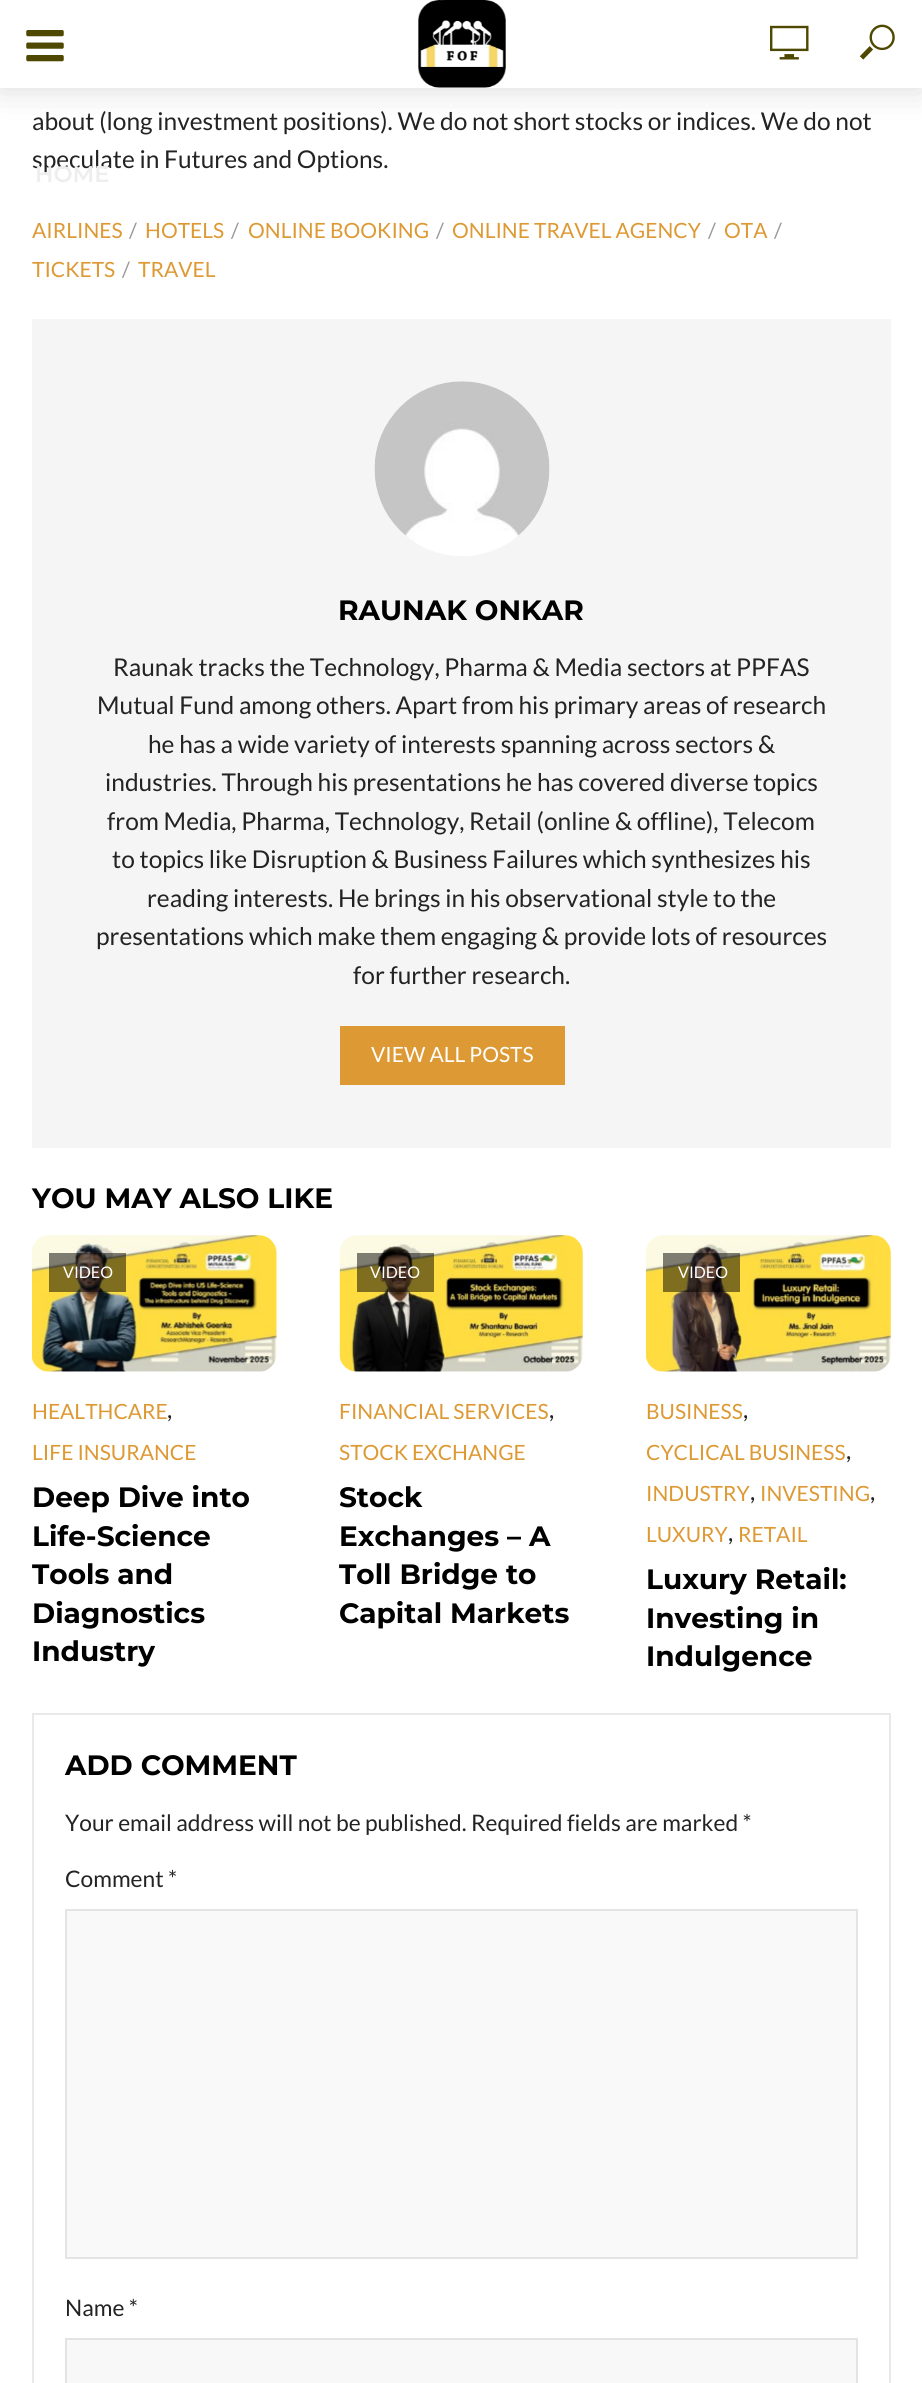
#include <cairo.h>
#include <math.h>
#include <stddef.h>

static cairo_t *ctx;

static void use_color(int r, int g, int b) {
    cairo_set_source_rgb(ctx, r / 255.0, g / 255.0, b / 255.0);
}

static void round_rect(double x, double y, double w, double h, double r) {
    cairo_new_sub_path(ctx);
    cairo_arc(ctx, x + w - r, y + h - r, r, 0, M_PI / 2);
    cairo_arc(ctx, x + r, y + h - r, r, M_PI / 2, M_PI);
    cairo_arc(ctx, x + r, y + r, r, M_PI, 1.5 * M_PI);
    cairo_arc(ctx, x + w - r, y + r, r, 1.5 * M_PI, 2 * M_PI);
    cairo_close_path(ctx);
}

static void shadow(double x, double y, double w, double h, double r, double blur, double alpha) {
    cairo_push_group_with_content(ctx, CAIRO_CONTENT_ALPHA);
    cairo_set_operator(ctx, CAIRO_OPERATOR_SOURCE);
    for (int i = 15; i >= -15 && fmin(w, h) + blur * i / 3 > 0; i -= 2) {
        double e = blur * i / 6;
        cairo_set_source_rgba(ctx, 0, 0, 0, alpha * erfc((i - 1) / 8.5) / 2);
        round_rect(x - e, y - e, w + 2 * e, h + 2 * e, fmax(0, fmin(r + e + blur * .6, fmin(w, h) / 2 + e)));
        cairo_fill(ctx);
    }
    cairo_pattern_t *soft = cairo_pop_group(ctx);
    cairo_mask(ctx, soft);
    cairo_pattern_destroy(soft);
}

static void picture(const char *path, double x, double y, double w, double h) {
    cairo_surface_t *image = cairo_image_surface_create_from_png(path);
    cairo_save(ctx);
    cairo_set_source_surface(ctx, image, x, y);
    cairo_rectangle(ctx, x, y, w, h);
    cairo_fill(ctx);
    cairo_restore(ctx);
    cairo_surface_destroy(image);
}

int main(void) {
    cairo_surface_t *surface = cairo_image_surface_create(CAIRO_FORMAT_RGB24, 922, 2383);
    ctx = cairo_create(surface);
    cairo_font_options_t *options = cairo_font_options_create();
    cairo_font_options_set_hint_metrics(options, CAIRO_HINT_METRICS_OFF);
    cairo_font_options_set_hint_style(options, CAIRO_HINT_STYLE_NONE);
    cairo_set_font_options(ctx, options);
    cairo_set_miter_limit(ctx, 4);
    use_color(255, 255, 255);
    cairo_paint(ctx);
    cairo_select_font_face(ctx, "Lato", CAIRO_FONT_SLANT_NORMAL, CAIRO_FONT_WEIGHT_NORMAL);
    cairo_set_font_size(ctx, 24.5);
    use_color(35, 35, 35);
    cairo_move_to(ctx, 32, 130);
    cairo_show_text(ctx, "about (long investment positions). We do not short stocks or indices. We do not");
    cairo_move_to(ctx, 32, 168);
    cairo_show_text(ctx, "speculate in Futures and Options.");
    cairo_set_font_size(ctx, 21);
    use_color(221, 153, 51);
    cairo_move_to(ctx, 32, 238);
    cairo_show_text(ctx, "AIRLINES");
    use_color(153, 153, 153);
    cairo_move_to(ctx, 129, 238);
    cairo_show_text(ctx, "/");
    use_color(221, 153, 51);
    cairo_move_to(ctx, 145, 238);
    cairo_show_text(ctx, "HOTELS");
    use_color(153, 153, 153);
    cairo_move_to(ctx, 231, 238);
    cairo_show_text(ctx, "/");
    use_color(221, 153, 51);
    cairo_move_to(ctx, 248, 238);
    cairo_show_text(ctx, "ONLINE BOOKING");
    use_color(153, 153, 153);
    cairo_move_to(ctx, 436, 238);
    cairo_show_text(ctx, "/");
    use_color(221, 153, 51);
    cairo_move_to(ctx, 452, 238);
    cairo_show_text(ctx, "ONLINE TRAVEL AGENCY");
    use_color(153, 153, 153);
    cairo_move_to(ctx, 708, 238);
    cairo_show_text(ctx, "/");
    use_color(221, 153, 51);
    cairo_move_to(ctx, 724, 238);
    cairo_show_text(ctx, "OTA");
    use_color(153, 153, 153);
    cairo_move_to(ctx, 774, 238);
    cairo_show_text(ctx, "/");
    use_color(221, 153, 51);
    cairo_move_to(ctx, 32, 277);
    cairo_show_text(ctx, "TICKETS");
    use_color(153, 153, 153);
    cairo_move_to(ctx, 122, 277);
    cairo_show_text(ctx, "/");
    use_color(221, 153, 51);
    cairo_move_to(ctx, 138, 277);
    cairo_show_text(ctx, "TRAVEL");
    use_color(245, 245, 245);
    cairo_rectangle(ctx, 32, 319, 859, 829);
    cairo_fill(ctx);
    picture("img1.png", 374, 381, 176, 175);
    cairo_select_font_face(ctx, "Montserrat", CAIRO_FONT_SLANT_NORMAL, CAIRO_FONT_WEIGHT_BOLD);
    cairo_set_font_size(ctx, 28);
    use_color(0, 0, 0);
    cairo_move_to(ctx, 338, 620);
    cairo_show_text(ctx, "RAUNAK ONKAR");
    cairo_select_font_face(ctx, "Lato", CAIRO_FONT_SLANT_NORMAL, CAIRO_FONT_WEIGHT_NORMAL);
    cairo_set_font_size(ctx, 24.5);
    use_color(35, 35, 35);
    cairo_move_to(ctx, 113, 676);
    cairo_show_text(ctx, "Raunak tracks the Technology, Pharma & Media sectors at PPFAS");
    cairo_move_to(ctx, 97, 714);
    cairo_show_text(ctx, "Mutual Fund among others. Apart from his primary areas of research");
    cairo_move_to(ctx, 148, 753);
    cairo_show_text(ctx, "he has a wide variety of interests spanning across sectors &");
    cairo_move_to(ctx, 105, 791);
    cairo_show_text(ctx, "industries. Through his presentations he has covered diverse topics");
    cairo_move_to(ctx, 107, 830);
    cairo_show_text(ctx, "from Media, Pharma, Technology, Retail (online & offline), Telecom");
    cairo_move_to(ctx, 112, 868);
    cairo_show_text(ctx, "to topics like Disruption & Business Failures which synthesizes his");
    cairo_move_to(ctx, 147, 907);
    cairo_show_text(ctx, "reading interests. He brings in his observational style to the");
    cairo_move_to(ctx, 96, 945);
    cairo_show_text(ctx, "presentations which make them engaging & provide lots of resources");
    cairo_move_to(ctx, 353, 984);
    cairo_show_text(ctx, "for further research.");
    use_color(221, 153, 51);
    cairo_rectangle(ctx, 340, 1026, 225, 59);
    cairo_fill(ctx);
    cairo_set_font_size(ctx, 21);
    use_color(255, 255, 255);
    cairo_move_to(ctx, 371, 1062);
    cairo_show_text(ctx, "VIEW ALL POSTS");
    cairo_select_font_face(ctx, "Montserrat", CAIRO_FONT_SLANT_NORMAL, CAIRO_FONT_WEIGHT_BOLD);
    cairo_set_font_size(ctx, 28);
    use_color(0, 0, 0);
    cairo_move_to(ctx, 32, 1208);
    cairo_show_text(ctx, "YOU MAY ALSO LIKE");
    picture("img2.png", 32, 1235, 245, 137);
    cairo_set_source_rgba(ctx, 0, 0, 0, 0.5);
    cairo_rectangle(ctx, 49, 1253, 77, 39);
    cairo_fill(ctx);
    cairo_select_font_face(ctx, "Lato", CAIRO_FONT_SLANT_NORMAL, CAIRO_FONT_WEIGHT_NORMAL);
    cairo_set_font_size(ctx, 16);
    use_color(255, 255, 255);
    cairo_move_to(ctx, 63, 1278);
    cairo_show_text(ctx, "VIDEO");
    cairo_set_font_size(ctx, 21);
    use_color(221, 153, 51);
    cairo_move_to(ctx, 32, 1419);
    cairo_show_text(ctx, "HEALTHCARE");
    cairo_set_font_size(ctx, 24.5);
    use_color(35, 35, 35);
    cairo_move_to(ctx, 167, 1418);
    cairo_show_text(ctx, ",");
    cairo_set_font_size(ctx, 21);
    use_color(221, 153, 51);
    cairo_move_to(ctx, 32, 1460);
    cairo_show_text(ctx, "LIFE INSURANCE");
    cairo_select_font_face(ctx, "Montserrat", CAIRO_FONT_SLANT_NORMAL, CAIRO_FONT_WEIGHT_BOLD);
    cairo_set_font_size(ctx, 28);
    use_color(0, 0, 0);
    cairo_move_to(ctx, 32, 1507);
    cairo_show_text(ctx, "Deep Dive into");
    cairo_move_to(ctx, 32, 1546);
    cairo_show_text(ctx, "Life-Science");
    cairo_move_to(ctx, 32, 1584);
    cairo_show_text(ctx, "Tools and");
    cairo_move_to(ctx, 32, 1623);
    cairo_show_text(ctx, "Diagnostics");
    cairo_move_to(ctx, 32, 1661);
    cairo_show_text(ctx, "Industry");
    picture("img3.png", 339, 1235, 244, 137);
    cairo_set_source_rgba(ctx, 0, 0, 0, 0.5);
    cairo_rectangle(ctx, 357, 1253, 77, 39);
    cairo_fill(ctx);
    cairo_select_font_face(ctx, "Lato", CAIRO_FONT_SLANT_NORMAL, CAIRO_FONT_WEIGHT_NORMAL);
    cairo_set_font_size(ctx, 16);
    use_color(255, 255, 255);
    cairo_move_to(ctx, 370, 1278);
    cairo_show_text(ctx, "VIDEO");
    cairo_set_font_size(ctx, 21);
    use_color(221, 153, 51);
    cairo_move_to(ctx, 339, 1419);
    cairo_show_text(ctx, "FINANCIAL SERVICES");
    cairo_set_font_size(ctx, 24.5);
    use_color(35, 35, 35);
    cairo_move_to(ctx, 549, 1418);
    cairo_show_text(ctx, ",");
    cairo_set_font_size(ctx, 21);
    use_color(221, 153, 51);
    cairo_move_to(ctx, 339, 1460);
    cairo_show_text(ctx, "STOCK EXCHANGE");
    cairo_select_font_face(ctx, "Montserrat", CAIRO_FONT_SLANT_NORMAL, CAIRO_FONT_WEIGHT_BOLD);
    cairo_set_font_size(ctx, 28);
    use_color(0, 0, 0);
    cairo_move_to(ctx, 339, 1507);
    cairo_show_text(ctx, "Stock");
    cairo_move_to(ctx, 339, 1546);
    cairo_show_text(ctx, "Exchanges – A");
    cairo_move_to(ctx, 339, 1584);
    cairo_show_text(ctx, "Toll Bridge to");
    cairo_move_to(ctx, 339, 1623);
    cairo_show_text(ctx, "Capital Markets");
    picture("img4.png", 646, 1235, 245, 137);
    cairo_set_source_rgba(ctx, 0, 0, 0, 0.5);
    cairo_rectangle(ctx, 663, 1253, 77, 39);
    cairo_fill(ctx);
    cairo_select_font_face(ctx, "Lato", CAIRO_FONT_SLANT_NORMAL, CAIRO_FONT_WEIGHT_NORMAL);
    cairo_set_font_size(ctx, 16);
    use_color(255, 255, 255);
    cairo_move_to(ctx, 678, 1278);
    cairo_show_text(ctx, "VIDEO");
    cairo_set_font_size(ctx, 21);
    use_color(221, 153, 51);
    cairo_move_to(ctx, 646, 1419);
    cairo_show_text(ctx, "BUSINESS");
    cairo_set_font_size(ctx, 24.5);
    use_color(35, 35, 35);
    cairo_move_to(ctx, 743, 1418);
    cairo_show_text(ctx, ",");
    cairo_set_font_size(ctx, 21);
    use_color(221, 153, 51);
    cairo_move_to(ctx, 646, 1460);
    cairo_show_text(ctx, "CYCLICAL BUSINESS");
    cairo_set_font_size(ctx, 24.5);
    use_color(35, 35, 35);
    cairo_move_to(ctx, 846, 1459);
    cairo_show_text(ctx, ",");
    cairo_set_font_size(ctx, 21);
    use_color(221, 153, 51);
    cairo_move_to(ctx, 646, 1501);
    cairo_show_text(ctx, "INDUSTRY");
    cairo_set_font_size(ctx, 24.5);
    use_color(35, 35, 35);
    cairo_move_to(ctx, 750, 1500);
    cairo_show_text(ctx, ",");
    cairo_set_font_size(ctx, 21);
    use_color(221, 153, 51);
    cairo_move_to(ctx, 760, 1501);
    cairo_show_text(ctx, "INVESTING");
    cairo_set_font_size(ctx, 24.5);
    use_color(35, 35, 35);
    cairo_move_to(ctx, 870, 1500);
    cairo_show_text(ctx, ",");
    cairo_set_font_size(ctx, 21);
    use_color(221, 153, 51);
    cairo_move_to(ctx, 646, 1542);
    cairo_show_text(ctx, "LUXURY");
    cairo_set_font_size(ctx, 24.5);
    use_color(35, 35, 35);
    cairo_move_to(ctx, 728, 1541);
    cairo_show_text(ctx, ",");
    cairo_set_font_size(ctx, 21);
    use_color(221, 153, 51);
    cairo_move_to(ctx, 738, 1542);
    cairo_show_text(ctx, "RETAIL");
    cairo_select_font_face(ctx, "Montserrat", CAIRO_FONT_SLANT_NORMAL, CAIRO_FONT_WEIGHT_BOLD);
    cairo_set_font_size(ctx, 28);
    use_color(0, 0, 0);
    cairo_move_to(ctx, 646, 1589);
    cairo_show_text(ctx, "Luxury Retail:");
    cairo_move_to(ctx, 646, 1628);
    cairo_show_text(ctx, "Investing in");
    cairo_move_to(ctx, 646, 1666);
    cairo_show_text(ctx, "Indulgence");
    cairo_rectangle(ctx, 33, 1714, 857, 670);
    use_color(233, 233, 233);
    cairo_stroke(ctx);
    use_color(0, 0, 0);
    cairo_move_to(ctx, 65, 1775);
    cairo_show_text(ctx, "ADD COMMENT");
    cairo_select_font_face(ctx, "Lato", CAIRO_FONT_SLANT_NORMAL, CAIRO_FONT_WEIGHT_NORMAL);
    cairo_set_font_size(ctx, 22.75);
    use_color(35, 35, 35);
    cairo_move_to(ctx, 65, 1831);
    cairo_show_text(ctx, "Your email address will not be published. Required fields are marked *");
    cairo_move_to(ctx, 65, 1887);
    cairo_show_text(ctx, "Comment *");
    use_color(249, 249, 249);
    cairo_rectangle(ctx, 66, 1910, 791, 348);
    cairo_fill_preserve(ctx);
    use_color(228, 228, 228);
    cairo_stroke(ctx);
    use_color(35, 35, 35);
    cairo_move_to(ctx, 65, 2316);
    cairo_show_text(ctx, "Name *");
    use_color(248, 248, 248);
    cairo_rectangle(ctx, 66, 2339, 791, 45);
    cairo_fill_preserve(ctx);
    use_color(227, 227, 227);
    cairo_stroke(ctx);
    use_color(0, 0, 0);
    shadow(0, 0, 922, 88, 0, 17.5, 0.15);
    use_color(255, 255, 255);
    cairo_rectangle(ctx, 0, 0, 922, 88);
    cairo_fill(ctx);
    picture("img5.png", 418, 0, 88, 88);
    picture("img6.png", 770, 25, 39, 35);
    picture("img7.png", 859, 24, 36, 36);
    picture("img8.png", 26, 30, 38, 32);
    cairo_select_font_face(ctx, "Montserrat SemiBold", CAIRO_FONT_SLANT_NORMAL, CAIRO_FONT_WEIGHT_NORMAL);
    use_color(238, 238, 238);
    cairo_move_to(ctx, 35, 182);
    cairo_show_text(ctx, "HOME");
    cairo_surface_write_to_png(surface, "result.png");
    cairo_font_options_destroy(options);
    cairo_destroy(ctx);
    cairo_surface_destroy(surface);
    return 0;
}
